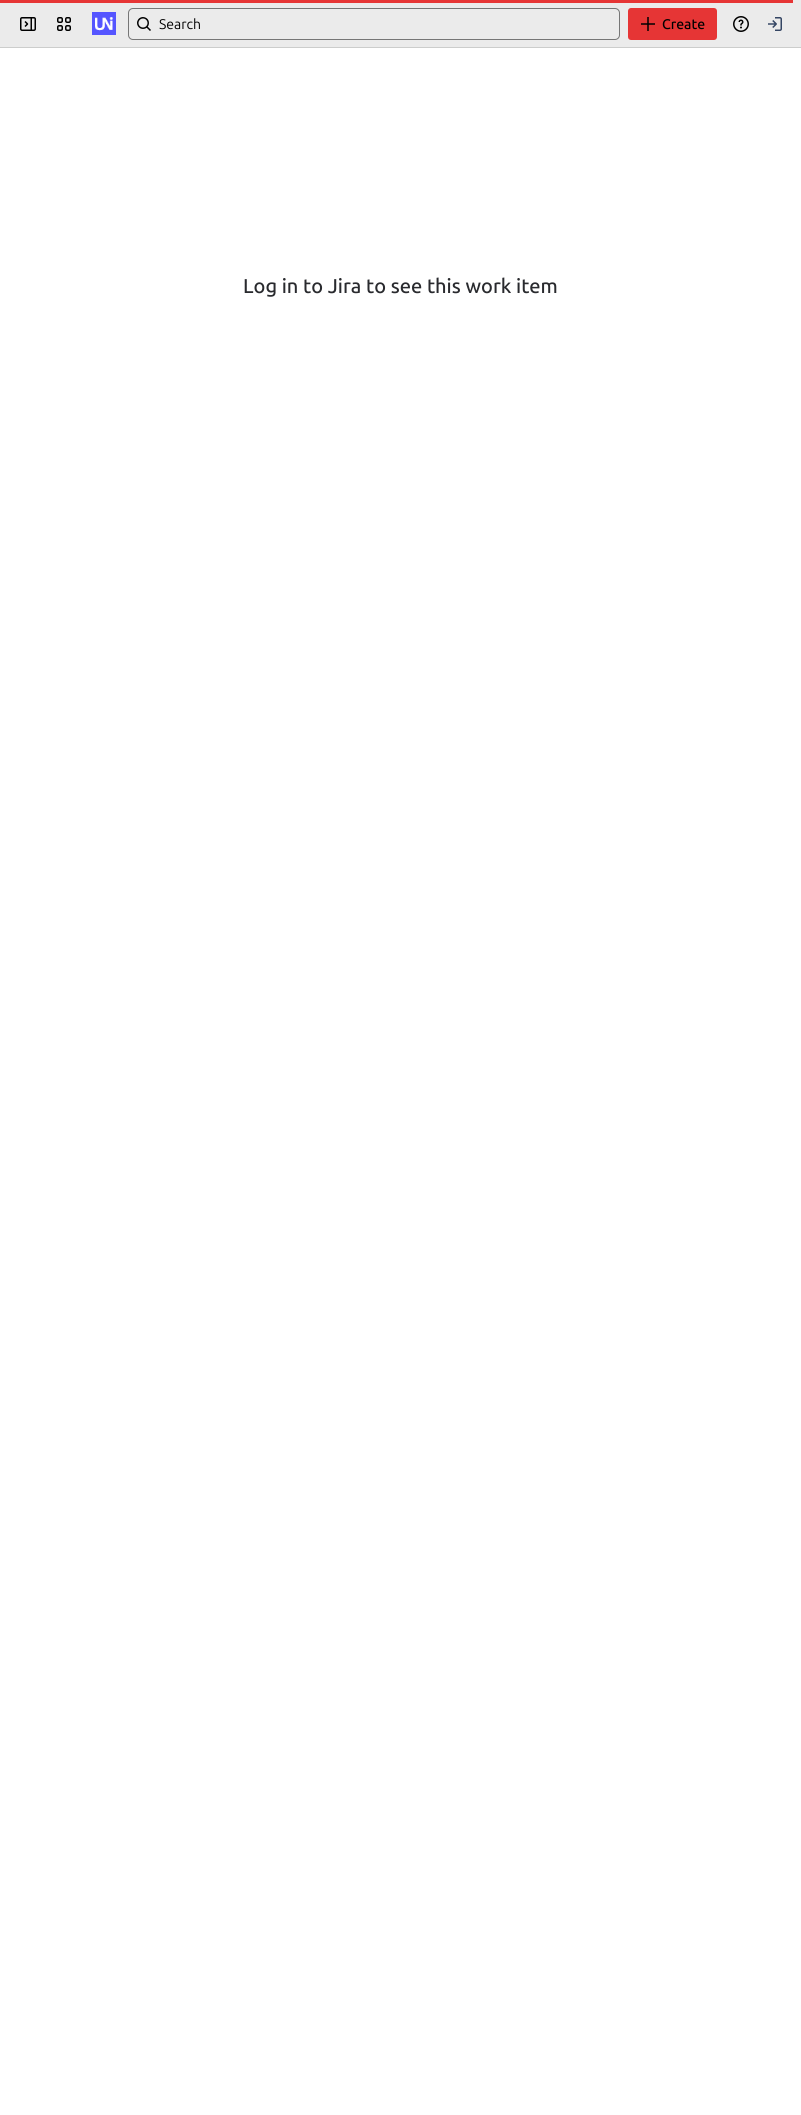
#include <cairo.h>
#include <math.h>
#include <stddef.h>

static cairo_t *ctx;

static void use_color(int r, int g, int b) {
    cairo_set_source_rgb(ctx, r / 255.0, g / 255.0, b / 255.0);
}

static void round_rect(double x, double y, double w, double h, double r) {
    cairo_new_sub_path(ctx);
    cairo_arc(ctx, x + w - r, y + h - r, r, 0, M_PI / 2);
    cairo_arc(ctx, x + r, y + h - r, r, M_PI / 2, M_PI);
    cairo_arc(ctx, x + r, y + r, r, M_PI, 1.5 * M_PI);
    cairo_arc(ctx, x + w - r, y + r, r, 1.5 * M_PI, 2 * M_PI);
    cairo_close_path(ctx);
}

static void picture(const char *path, double x, double y, double w, double h) {
    cairo_surface_t *image = cairo_image_surface_create_from_png(path);
    cairo_save(ctx);
    cairo_set_source_surface(ctx, image, x, y);
    cairo_rectangle(ctx, x, y, w, h);
    cairo_fill(ctx);
    cairo_restore(ctx);
    cairo_surface_destroy(image);
}

int main(void) {
    cairo_surface_t *surface = cairo_image_surface_create(CAIRO_FORMAT_RGB24, 801, 2115);
    ctx = cairo_create(surface);
    cairo_font_options_t *options = cairo_font_options_create();
    cairo_font_options_set_hint_metrics(options, CAIRO_HINT_METRICS_OFF);
    cairo_font_options_set_hint_style(options, CAIRO_HINT_STYLE_NONE);
    cairo_set_font_options(ctx, options);
    cairo_set_miter_limit(ctx, 4);
    use_color(255, 255, 255);
    cairo_paint(ctx);
    use_color(235, 235, 235);
    cairo_rectangle(ctx, 0, 0, 801, 47);
    cairo_fill(ctx);
    use_color(230, 53, 53);
    cairo_rectangle(ctx, 0, 0, 793, 3);
    cairo_fill(ctx);
    use_color(204, 205, 204);
    cairo_rectangle(ctx, 0, 47, 801, 1);
    cairo_fill(ctx);
    picture("img1.png", 20, 17, 16, 14);
    picture("img2.png", 57, 17, 14, 14);
    picture("img3.png", 92, 12, 24, 23);
    round_rect(128.5, 8.5, 491, 31, 4.5);
    use_color(118, 118, 118);
    cairo_set_line_width(ctx, 1);
    cairo_stroke(ctx);
    picture("img4.png", 137, 17, 14, 14);
    cairo_select_font_face(ctx, "Ubuntu", CAIRO_FONT_SLANT_NORMAL, CAIRO_FONT_WEIGHT_NORMAL);
    cairo_set_font_size(ctx, 14);
    use_color(0, 0, 0);
    cairo_move_to(ctx, 159, 29);
    cairo_show_text(ctx, "Search");
    use_color(230, 53, 53);
    round_rect(628, 8, 89, 32, 3);
    cairo_fill(ctx);
    picture("img5.png", 641, 17, 14, 14);
    cairo_select_font_face(ctx, "Ubuntu Medium", CAIRO_FONT_SLANT_NORMAL, CAIRO_FONT_WEIGHT_NORMAL);
    use_color(0, 0, 0);
    cairo_move_to(ctx, 662, 29);
    cairo_show_text(ctx, "Create");
    picture("img6.png", 733, 16, 16, 16);
    picture("img7.png", 768, 17, 14, 14);
    cairo_set_font_size(ctx, 20);
    use_color(41, 42, 46);
    cairo_move_to(ctx, 243, 293);
    cairo_show_text(ctx, "Log in to Jira to see this work item");
    cairo_surface_write_to_png(surface, "result.png");
    cairo_font_options_destroy(options);
    cairo_destroy(ctx);
    cairo_surface_destroy(surface);
    return 0;
}
